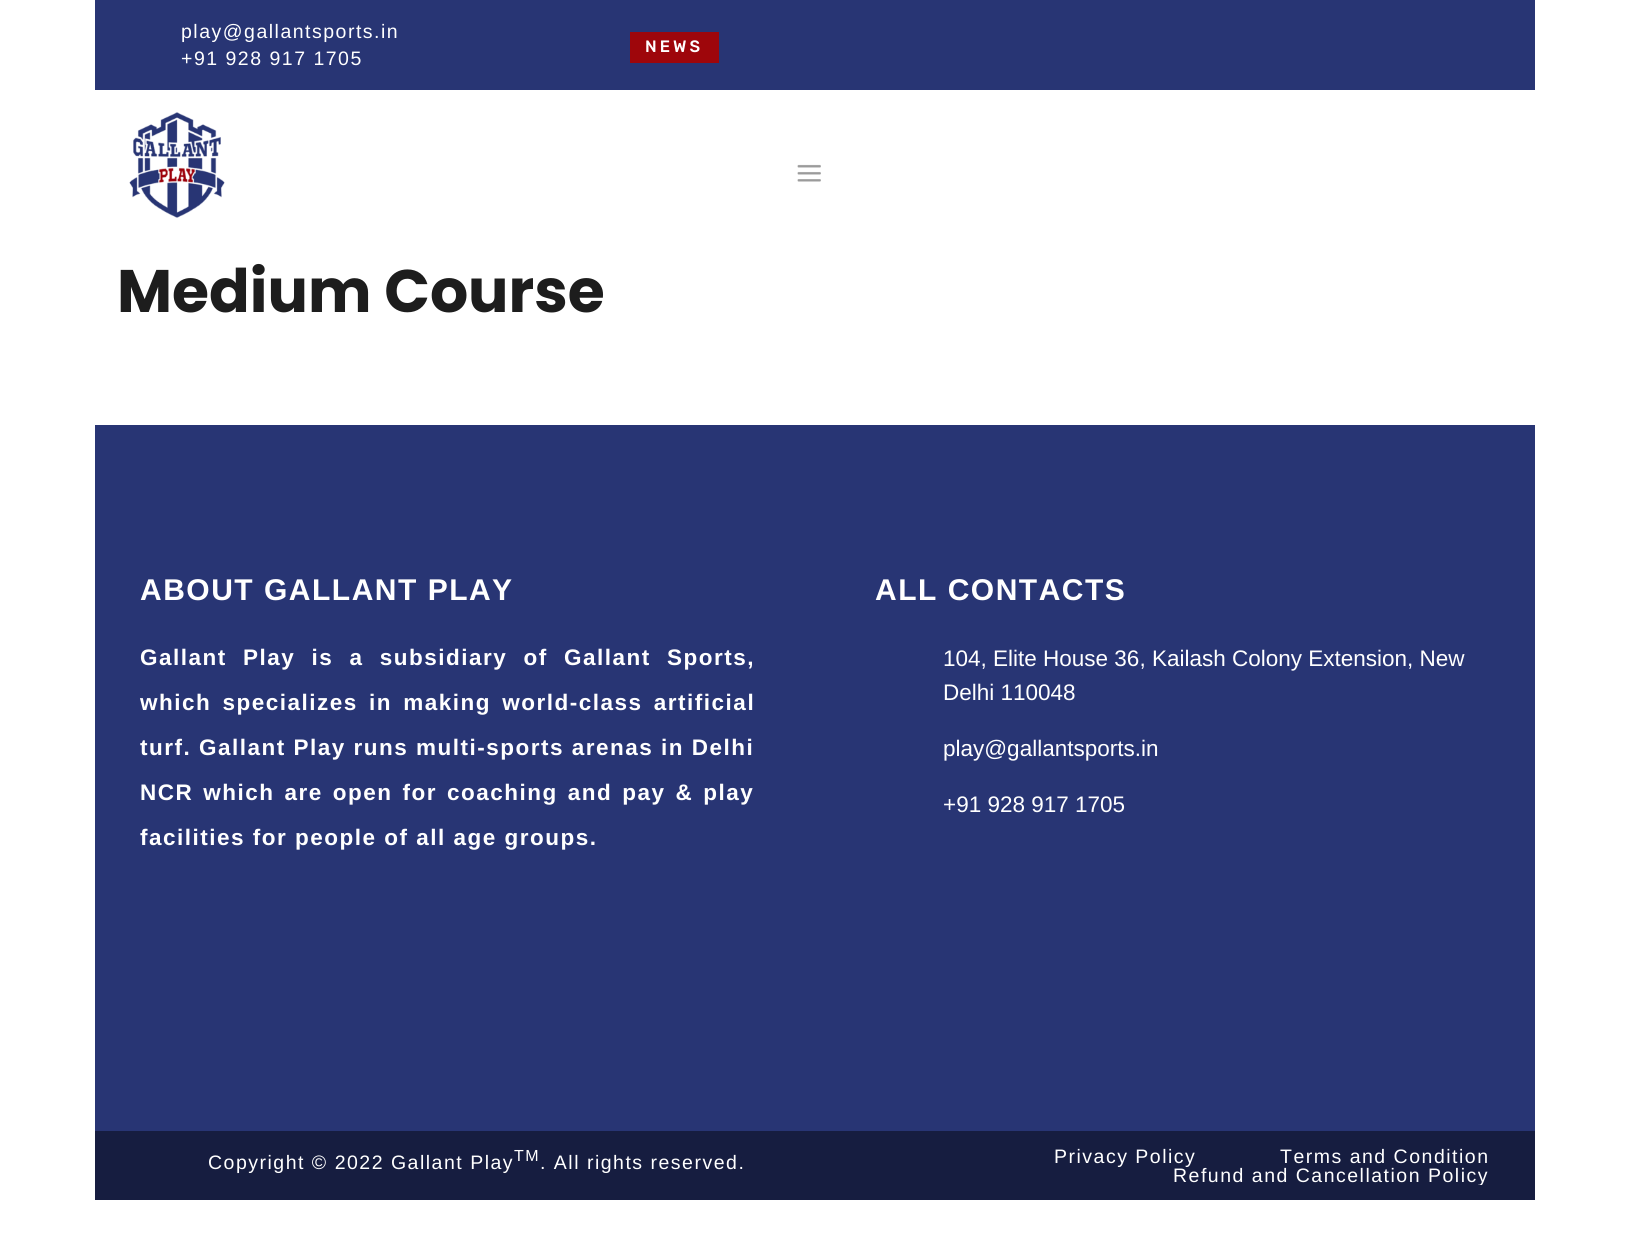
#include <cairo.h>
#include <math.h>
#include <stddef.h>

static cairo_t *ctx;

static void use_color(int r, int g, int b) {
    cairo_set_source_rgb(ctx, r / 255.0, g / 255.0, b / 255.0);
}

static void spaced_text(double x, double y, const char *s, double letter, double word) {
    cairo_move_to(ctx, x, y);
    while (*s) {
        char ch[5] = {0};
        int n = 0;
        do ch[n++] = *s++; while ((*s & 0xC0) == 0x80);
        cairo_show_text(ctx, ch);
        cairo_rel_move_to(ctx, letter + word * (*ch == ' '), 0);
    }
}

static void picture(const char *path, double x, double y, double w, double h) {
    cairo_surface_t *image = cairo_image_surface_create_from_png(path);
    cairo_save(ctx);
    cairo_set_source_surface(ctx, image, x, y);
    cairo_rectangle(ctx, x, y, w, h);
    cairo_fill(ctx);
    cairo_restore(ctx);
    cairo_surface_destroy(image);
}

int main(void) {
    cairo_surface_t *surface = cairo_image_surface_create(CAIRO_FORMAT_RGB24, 1628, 1258);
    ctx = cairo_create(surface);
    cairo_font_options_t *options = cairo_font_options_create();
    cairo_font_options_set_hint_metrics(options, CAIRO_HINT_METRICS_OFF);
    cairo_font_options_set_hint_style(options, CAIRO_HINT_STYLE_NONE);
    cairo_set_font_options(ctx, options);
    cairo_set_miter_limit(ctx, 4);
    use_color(255, 255, 255);
    cairo_paint(ctx);
    use_color(40, 53, 116);
    cairo_rectangle(ctx, 95, 0, 1440, 90);
    cairo_fill(ctx);
    cairo_select_font_face(ctx, "Liberation Sans", CAIRO_FONT_SLANT_NORMAL, CAIRO_FONT_WEIGHT_NORMAL);
    cairo_set_font_size(ctx, 19.5);
    use_color(255, 255, 255);
    spaced_text(181, 38, "play@gallantsports.in", 1.5, 0);
    spaced_text(181, 65, "+91 928 917 1705", 1.5, 0);
    use_color(158, 6, 11);
    cairo_rectangle(ctx, 630, 32, 89, 31);
    cairo_fill(ctx);
    cairo_select_font_face(ctx, "Rubik Medium", CAIRO_FONT_SLANT_NORMAL, CAIRO_FONT_WEIGHT_NORMAL);
    cairo_set_font_size(ctx, 16.5);
    use_color(255, 255, 255);
    spaced_text(645, 52, "NEWS", 3, 0);
    picture("img1.png", 129, 112, 96, 106);
    picture("img2.png", 797, 164, 24, 18);
    cairo_select_font_face(ctx, "Poppins", CAIRO_FONT_SLANT_NORMAL, CAIRO_FONT_WEIGHT_BOLD);
    cairo_set_font_size(ctx, 60);
    use_color(29, 29, 29);
    cairo_move_to(ctx, 117, 312);
    cairo_show_text(ctx, "Medium Course");
    use_color(40, 53, 116);
    cairo_rectangle(ctx, 95, 425, 1440, 706);
    cairo_fill(ctx);
    cairo_select_font_face(ctx, "Liberation Sans", CAIRO_FONT_SLANT_NORMAL, CAIRO_FONT_WEIGHT_BOLD);
    cairo_set_font_size(ctx, 30);
    use_color(255, 255, 255);
    spaced_text(140, 600, "ABOUT GALLANT PLAY", 1.5, 0);
    cairo_set_font_size(ctx, 22.5);
    spaced_text(140, 665, "Gallant Play is a subsidiary of Gallant Sports,", 1.5, 8.5);
    spaced_text(140, 710, "which specializes in making world-class artificial", 1.5, 3.5);
    spaced_text(140, 755, "turf. Gallant Play runs multi-sports arenas in Delhi", 1.5, 0);
    spaced_text(140, 800, "NCR which are open for coaching and pay & play", 1.5, 2.25);
    spaced_text(140, 845, "facilities for people of all age groups.", 1.5, 0);
    cairo_set_font_size(ctx, 30);
    spaced_text(875, 600, "ALL CONTACTS", 1.5, 0);
    cairo_select_font_face(ctx, "Liberation Sans", CAIRO_FONT_SLANT_NORMAL, CAIRO_FONT_WEIGHT_NORMAL);
    cairo_set_font_size(ctx, 22.5);
    cairo_move_to(ctx, 943, 666);
    cairo_show_text(ctx, "104, Elite House 36, Kailash Colony Extension, New");
    cairo_move_to(ctx, 943, 700);
    cairo_show_text(ctx, "Delhi 110048");
    cairo_move_to(ctx, 943, 756);
    cairo_show_text(ctx, "play@gallantsports.in");
    cairo_move_to(ctx, 943, 812);
    cairo_show_text(ctx, "+91 928 917 1705");
    use_color(22, 29, 64);
    cairo_rectangle(ctx, 95, 1131, 1440, 69);
    cairo_fill(ctx);
    cairo_set_font_size(ctx, 19.5);
    use_color(255, 255, 255);
    spaced_text(208, 1169, "Copyright © 2022 Gallant Play", 1.5, 0);
    cairo_set_font_size(ctx, 16);
    spaced_text(514, 1161, "TM", 1.5, 0);
    cairo_set_font_size(ctx, 19.5);
    spaced_text(540, 1169, ". All rights reserved.", 1.5, 0);
    spaced_text(1054, 1163, "Privacy Policy", 1.5, 0);
    spaced_text(1280, 1163, "Terms and Condition", 1.5, 0);
    cairo_save(ctx);
    cairo_rectangle(ctx, 815, 1146, 675, 39);
    cairo_clip(ctx);
    spaced_text(1173, 1182, "Refund and Cancellation Policy", 1.5, 0);
    cairo_restore(ctx);
    cairo_surface_write_to_png(surface, "result.png");
    cairo_font_options_destroy(options);
    cairo_destroy(ctx);
    cairo_surface_destroy(surface);
    return 0;
}
